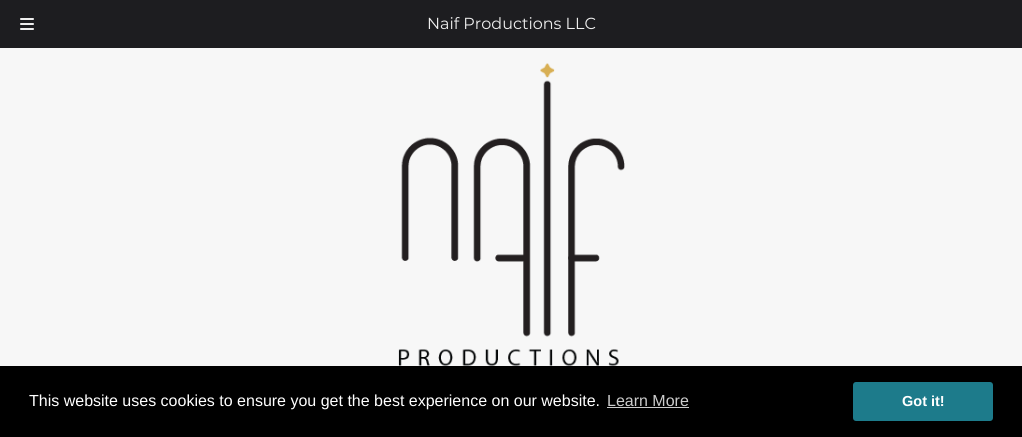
#include <cairo.h>
#include <math.h>
#include <stddef.h>

static cairo_t *ctx;

static void use_color(int r, int g, int b) {
    cairo_set_source_rgb(ctx, r / 255.0, g / 255.0, b / 255.0);
}

static void round_rect(double x, double y, double w, double h, double r) {
    cairo_new_sub_path(ctx);
    cairo_arc(ctx, x + w - r, y + h - r, r, 0, M_PI / 2);
    cairo_arc(ctx, x + r, y + h - r, r, M_PI / 2, M_PI);
    cairo_arc(ctx, x + r, y + r, r, M_PI, 1.5 * M_PI);
    cairo_arc(ctx, x + w - r, y + r, r, 1.5 * M_PI, 2 * M_PI);
    cairo_close_path(ctx);
}

static void picture(const char *path, double x, double y, double w, double h) {
    cairo_surface_t *image = cairo_image_surface_create_from_png(path);
    cairo_save(ctx);
    cairo_set_source_surface(ctx, image, x, y);
    cairo_rectangle(ctx, x, y, w, h);
    cairo_fill(ctx);
    cairo_restore(ctx);
    cairo_surface_destroy(image);
}

int main(void) {
    cairo_surface_t *surface = cairo_image_surface_create(CAIRO_FORMAT_RGB24, 1022, 437);
    ctx = cairo_create(surface);
    cairo_font_options_t *options = cairo_font_options_create();
    cairo_font_options_set_hint_metrics(options, CAIRO_HINT_METRICS_OFF);
    cairo_font_options_set_hint_style(options, CAIRO_HINT_STYLE_NONE);
    cairo_set_font_options(ctx, options);
    cairo_set_miter_limit(ctx, 4);
    use_color(247, 247, 247);
    cairo_paint(ctx);
    use_color(29, 29, 32);
    cairo_rectangle(ctx, 0, 0, 1022, 48);
    cairo_fill(ctx);
    picture("img1.png", 20, 18, 14, 12);
    cairo_select_font_face(ctx, "Montserrat", CAIRO_FONT_SLANT_NORMAL, CAIRO_FONT_WEIGHT_NORMAL);
    cairo_set_font_size(ctx, 16);
    use_color(238, 238, 238);
    cairo_move_to(ctx, 427, 29);
    cairo_show_text(ctx, "Naif Productions LLC");
    picture("img2.png", 398, 63, 227, 303);
    use_color(0, 0, 0);
    cairo_rectangle(ctx, 0, 366, 1022, 71);
    cairo_fill(ctx);
    cairo_select_font_face(ctx, "Liberation Sans", CAIRO_FONT_SLANT_NORMAL, CAIRO_FONT_WEIGHT_NORMAL);
    use_color(255, 255, 255);
    cairo_move_to(ctx, 29, 406);
    cairo_show_text(ctx, "This website uses cookies to ensure you get the best experience on our website.");
    use_color(204, 204, 204);
    cairo_move_to(ctx, 607, 406);
    cairo_show_text(ctx, "Learn More");
    cairo_rectangle(ctx, 607, 407, 82, 1);
    cairo_fill(ctx);
    use_color(29, 123, 139);
    round_rect(853, 382, 140, 39, 3);
    cairo_fill(ctx);
    cairo_select_font_face(ctx, "Liberation Sans", CAIRO_FONT_SLANT_NORMAL, CAIRO_FONT_WEIGHT_BOLD);
    cairo_set_font_size(ctx, 14.5);
    use_color(255, 255, 255);
    cairo_move_to(ctx, 902, 406);
    cairo_show_text(ctx, "Got it!");
    cairo_surface_write_to_png(surface, "result.png");
    cairo_font_options_destroy(options);
    cairo_destroy(ctx);
    cairo_surface_destroy(surface);
    return 0;
}
